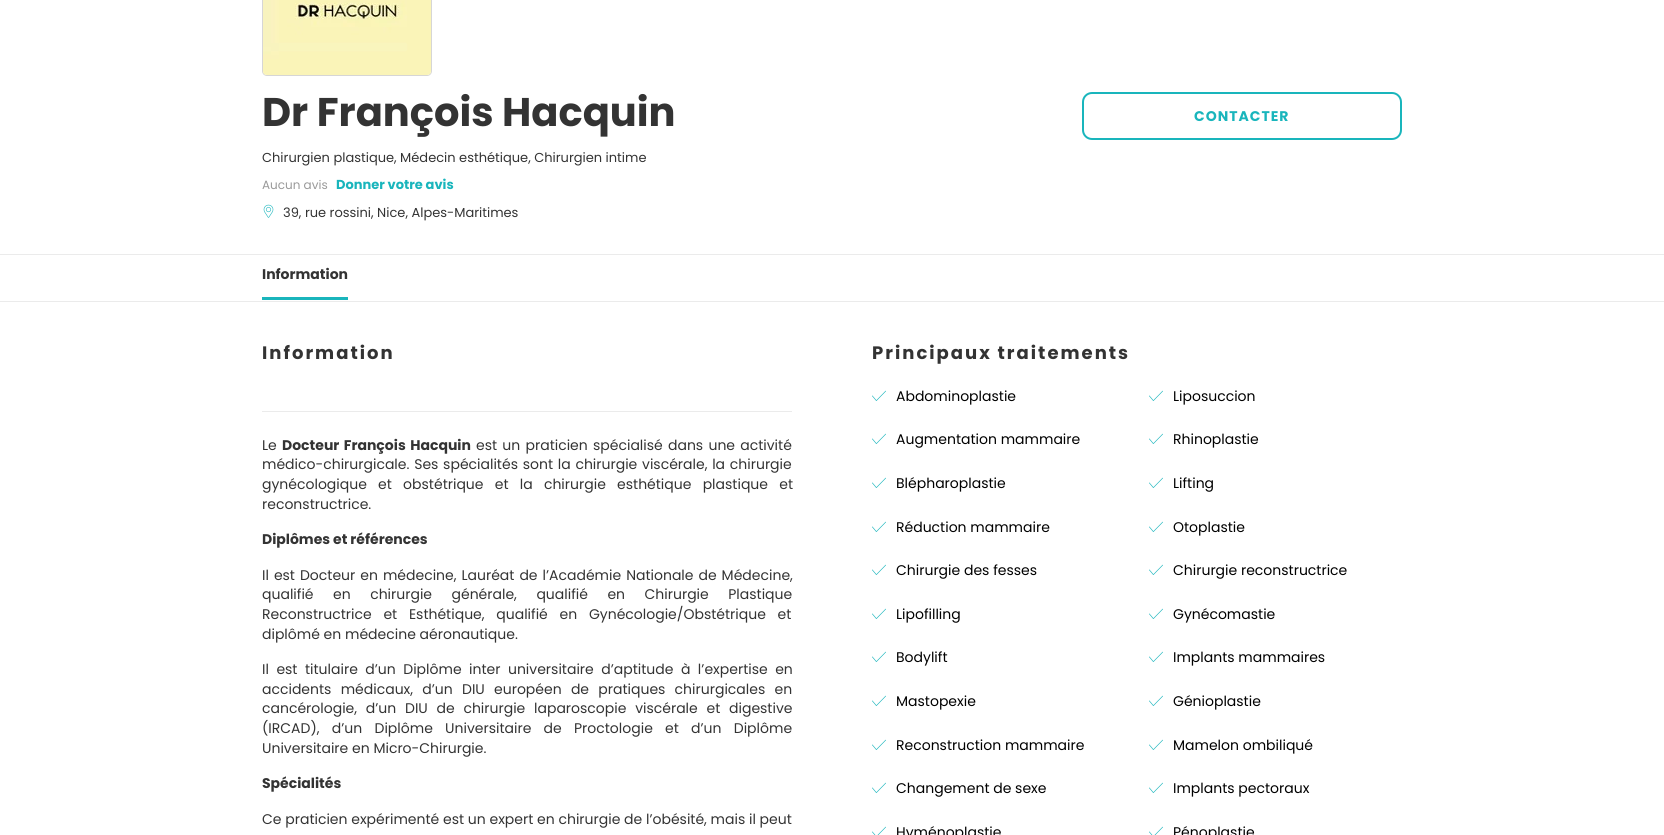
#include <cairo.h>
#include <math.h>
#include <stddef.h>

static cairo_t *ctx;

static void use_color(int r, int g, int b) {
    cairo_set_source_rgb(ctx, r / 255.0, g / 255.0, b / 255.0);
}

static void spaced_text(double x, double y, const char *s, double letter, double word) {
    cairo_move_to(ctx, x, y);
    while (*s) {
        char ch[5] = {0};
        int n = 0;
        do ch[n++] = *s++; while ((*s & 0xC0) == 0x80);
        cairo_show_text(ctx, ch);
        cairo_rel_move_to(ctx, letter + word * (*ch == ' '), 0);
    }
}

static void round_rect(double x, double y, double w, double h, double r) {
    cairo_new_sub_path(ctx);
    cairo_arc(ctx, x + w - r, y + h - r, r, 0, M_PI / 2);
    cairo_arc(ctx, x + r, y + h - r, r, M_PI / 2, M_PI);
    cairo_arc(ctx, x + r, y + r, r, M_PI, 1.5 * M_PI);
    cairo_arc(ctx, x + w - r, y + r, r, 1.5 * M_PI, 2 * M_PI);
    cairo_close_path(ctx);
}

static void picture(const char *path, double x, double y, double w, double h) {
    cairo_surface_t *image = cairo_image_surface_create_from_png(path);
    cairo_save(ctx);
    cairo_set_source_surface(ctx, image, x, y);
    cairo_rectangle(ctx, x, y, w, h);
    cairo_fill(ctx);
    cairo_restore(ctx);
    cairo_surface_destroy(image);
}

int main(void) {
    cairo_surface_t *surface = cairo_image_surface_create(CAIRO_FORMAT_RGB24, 1664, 835);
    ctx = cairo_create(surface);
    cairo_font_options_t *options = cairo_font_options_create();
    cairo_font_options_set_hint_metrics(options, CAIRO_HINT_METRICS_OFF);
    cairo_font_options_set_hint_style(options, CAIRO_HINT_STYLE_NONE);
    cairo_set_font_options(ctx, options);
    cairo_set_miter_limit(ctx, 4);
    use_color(255, 255, 255);
    cairo_paint(ctx);
    round_rect(262.5, -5.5, 169, 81, 4.5);
    use_color(214, 214, 214);
    cairo_set_line_width(ctx, 1);
    cairo_stroke(ctx);
    picture("img1.png", 263, 0, 168, 75);
    cairo_select_font_face(ctx, "Poppins", CAIRO_FONT_SLANT_NORMAL, CAIRO_FONT_WEIGHT_BOLD);
    cairo_set_font_size(ctx, 40);
    use_color(51, 51, 51);
    cairo_move_to(ctx, 262, 126);
    cairo_show_text(ctx, "Dr François Hacquin");
    cairo_select_font_face(ctx, "Poppins", CAIRO_FONT_SLANT_NORMAL, CAIRO_FONT_WEIGHT_NORMAL);
    cairo_set_font_size(ctx, 13);
    cairo_move_to(ctx, 262, 162);
    cairo_show_text(ctx, "Chirurgien plastique, Médecin esthétique, Chirurgien intime");
    cairo_set_font_size(ctx, 12);
    use_color(153, 153, 153);
    cairo_move_to(ctx, 262, 189);
    cairo_show_text(ctx, "Aucun avis");
    cairo_select_font_face(ctx, "Poppins", CAIRO_FONT_SLANT_NORMAL, CAIRO_FONT_WEIGHT_BOLD);
    cairo_set_font_size(ctx, 13);
    use_color(25, 181, 188);
    cairo_move_to(ctx, 336, 189);
    cairo_show_text(ctx, "Donner votre avis");
    picture("img2.png", 263, 204, 11, 14);
    cairo_select_font_face(ctx, "Poppins", CAIRO_FONT_SLANT_NORMAL, CAIRO_FONT_WEIGHT_NORMAL);
    use_color(51, 51, 51);
    cairo_move_to(ctx, 283, 217);
    cairo_show_text(ctx, "39, rue rossini, Nice, Alpes-Maritimes");
    round_rect(1083, 93, 318, 46, 9);
    use_color(25, 181, 188);
    cairo_set_line_width(ctx, 2);
    cairo_stroke(ctx);
    cairo_select_font_face(ctx, "Poppins", CAIRO_FONT_SLANT_NORMAL, CAIRO_FONT_WEIGHT_BOLD);
    cairo_set_font_size(ctx, 14);
    spaced_text(1194, 121, "CONTACTER", 1, 0);
    use_color(235, 235, 235);
    cairo_rectangle(ctx, 0, 254, 1664, 1);
    cairo_fill(ctx);
    cairo_rectangle(ctx, 0, 301, 1664, 1);
    cairo_fill(ctx);
    use_color(51, 51, 51);
    cairo_move_to(ctx, 262, 279);
    cairo_show_text(ctx, "Information");
    use_color(25, 181, 188);
    cairo_rectangle(ctx, 262, 297, 86, 3);
    cairo_fill(ctx);
    cairo_set_font_size(ctx, 18);
    use_color(51, 51, 51);
    spaced_text(262, 359, "Information", 2, 0);
    use_color(235, 235, 235);
    cairo_rectangle(ctx, 262, 411, 530, 1);
    cairo_fill(ctx);
    cairo_select_font_face(ctx, "Poppins", CAIRO_FONT_SLANT_NORMAL, CAIRO_FONT_WEIGHT_NORMAL);
    cairo_set_font_size(ctx, 14);
    use_color(51, 51, 51);
    cairo_move_to(ctx, 262, 450);
    cairo_show_text(ctx, "Le");
    cairo_select_font_face(ctx, "Poppins", CAIRO_FONT_SLANT_NORMAL, CAIRO_FONT_WEIGHT_BOLD);
    spaced_text(282, 450, "Docteur François Hacquin", 0, 1.5);
    cairo_select_font_face(ctx, "Poppins", CAIRO_FONT_SLANT_NORMAL, CAIRO_FONT_WEIGHT_NORMAL);
    spaced_text(476, 450, "est un praticien spécialisé dans une activité", 0, 1.5);
    spaced_text(262, 469, "médico-chirurgicale. Ses spécialités sont la chirurgie viscérale, la chirurgie", 0, 1);
    spaced_text(262, 489, "gynécologique et obstétrique et la chirurgie esthétique plastique et", 0, 7.5);
    cairo_move_to(ctx, 262, 509);
    cairo_show_text(ctx, "reconstructrice.");
    cairo_select_font_face(ctx, "Poppins", CAIRO_FONT_SLANT_NORMAL, CAIRO_FONT_WEIGHT_BOLD);
    cairo_move_to(ctx, 262, 544);
    cairo_show_text(ctx, "Diplômes et références");
    cairo_select_font_face(ctx, "Poppins", CAIRO_FONT_SLANT_NORMAL, CAIRO_FONT_WEIGHT_NORMAL);
    spaced_text(262, 580, "Il est Docteur en médecine, Lauréat de l’Académie Nationale de Médecine,", 0, 1.25);
    spaced_text(262, 599, "qualifié en chirurgie générale, qualifié en Chirurgie Plastique", 0, 15.75);
    spaced_text(262, 619, "Reconstructrice et Esthétique, qualifié en Gynécologie/Obstétrique et", 0, 8);
    cairo_move_to(ctx, 262, 639);
    cairo_show_text(ctx, "diplômé en médecine aéronautique.");
    spaced_text(262, 674, "Il est titulaire d’un Diplôme inter universitaire d’aptitude à l’expertise en", 0, 3.75);
    spaced_text(262, 694, "accidents médicaux, d’un DIU européen de pratiques chirurgicales en", 0, 5.5);
    spaced_text(262, 713, "cancérologie, d’un DIU de chirurgie laparoscopie viscérale et digestive", 0, 5);
    spaced_text(262, 733, "(IRCAD), d’un Diplôme Universitaire de Proctologie et d’un Diplôme", 0, 8.5);
    cairo_move_to(ctx, 262, 753);
    cairo_show_text(ctx, "Universitaire en Micro-Chirurgie.");
    cairo_select_font_face(ctx, "Poppins", CAIRO_FONT_SLANT_NORMAL, CAIRO_FONT_WEIGHT_BOLD);
    cairo_move_to(ctx, 262, 788);
    cairo_show_text(ctx, "Spécialités");
    cairo_select_font_face(ctx, "Poppins", CAIRO_FONT_SLANT_NORMAL, CAIRO_FONT_WEIGHT_NORMAL);
    cairo_move_to(ctx, 262, 824);
    cairo_show_text(ctx, "Ce praticien expérimenté est un expert en chirurgie de l’obésité, mais il peut");
    cairo_select_font_face(ctx, "Poppins", CAIRO_FONT_SLANT_NORMAL, CAIRO_FONT_WEIGHT_BOLD);
    cairo_set_font_size(ctx, 18);
    spaced_text(872, 359, "Principaux traitements", 2, 0);
    picture("img3.png", 872, 390, 14, 11);
    cairo_select_font_face(ctx, "Poppins", CAIRO_FONT_SLANT_NORMAL, CAIRO_FONT_WEIGHT_NORMAL);
    cairo_set_font_size(ctx, 14);
    use_color(0, 0, 0);
    cairo_move_to(ctx, 896, 401);
    cairo_show_text(ctx, "Abdominoplastie");
    picture("img3.png", 1149, 390, 14, 11);
    cairo_move_to(ctx, 1173, 401);
    cairo_show_text(ctx, "Liposuccion");
    picture("img3.png", 872, 433, 14, 11);
    cairo_move_to(ctx, 896, 444);
    cairo_show_text(ctx, "Augmentation mammaire");
    picture("img3.png", 1149, 433, 14, 11);
    cairo_move_to(ctx, 1173, 444);
    cairo_show_text(ctx, "Rhinoplastie");
    picture("img3.png", 872, 477, 14, 11);
    cairo_move_to(ctx, 896, 488);
    cairo_show_text(ctx, "Blépharoplastie");
    picture("img3.png", 1149, 477, 14, 11);
    cairo_move_to(ctx, 1173, 488);
    cairo_show_text(ctx, "Lifting");
    picture("img3.png", 872, 521, 14, 11);
    cairo_move_to(ctx, 896, 532);
    cairo_show_text(ctx, "Réduction mammaire");
    picture("img3.png", 1149, 521, 14, 11);
    cairo_move_to(ctx, 1173, 532);
    cairo_show_text(ctx, "Otoplastie");
    picture("img3.png", 872, 564, 14, 11);
    cairo_move_to(ctx, 896, 575);
    cairo_show_text(ctx, "Chirurgie des fesses");
    picture("img3.png", 1149, 564, 14, 11);
    cairo_move_to(ctx, 1173, 575);
    cairo_show_text(ctx, "Chirurgie reconstructrice");
    picture("img3.png", 872, 608, 14, 11);
    cairo_move_to(ctx, 896, 619);
    cairo_show_text(ctx, "Lipofilling");
    picture("img3.png", 1149, 608, 14, 11);
    cairo_move_to(ctx, 1173, 619);
    cairo_show_text(ctx, "Gynécomastie");
    picture("img3.png", 872, 651, 14, 11);
    cairo_move_to(ctx, 896, 662);
    cairo_show_text(ctx, "Bodylift");
    picture("img3.png", 1149, 651, 14, 11);
    cairo_move_to(ctx, 1173, 662);
    cairo_show_text(ctx, "Implants mammaires");
    picture("img3.png", 872, 695, 14, 11);
    cairo_move_to(ctx, 896, 706);
    cairo_show_text(ctx, "Mastopexie");
    picture("img3.png", 1149, 695, 14, 11);
    cairo_move_to(ctx, 1173, 706);
    cairo_show_text(ctx, "Génioplastie");
    picture("img3.png", 872, 739, 14, 11);
    cairo_move_to(ctx, 896, 750);
    cairo_show_text(ctx, "Reconstruction mammaire");
    picture("img3.png", 1149, 739, 14, 11);
    cairo_move_to(ctx, 1173, 750);
    cairo_show_text(ctx, "Mamelon ombiliqué");
    picture("img3.png", 872, 782, 14, 11);
    cairo_move_to(ctx, 896, 793);
    cairo_show_text(ctx, "Changement de sexe");
    picture("img3.png", 1149, 782, 14, 11);
    cairo_move_to(ctx, 1173, 793);
    cairo_show_text(ctx, "Implants pectoraux");
    picture("img4.png", 872, 826, 14, 9);
    cairo_move_to(ctx, 896, 837);
    cairo_show_text(ctx, "Hyménoplastie");
    picture("img4.png", 1149, 826, 14, 9);
    cairo_move_to(ctx, 1173, 837);
    cairo_show_text(ctx, "Pénoplastie");
    cairo_surface_write_to_png(surface, "result.png");
    cairo_font_options_destroy(options);
    cairo_destroy(ctx);
    cairo_surface_destroy(surface);
    return 0;
}
